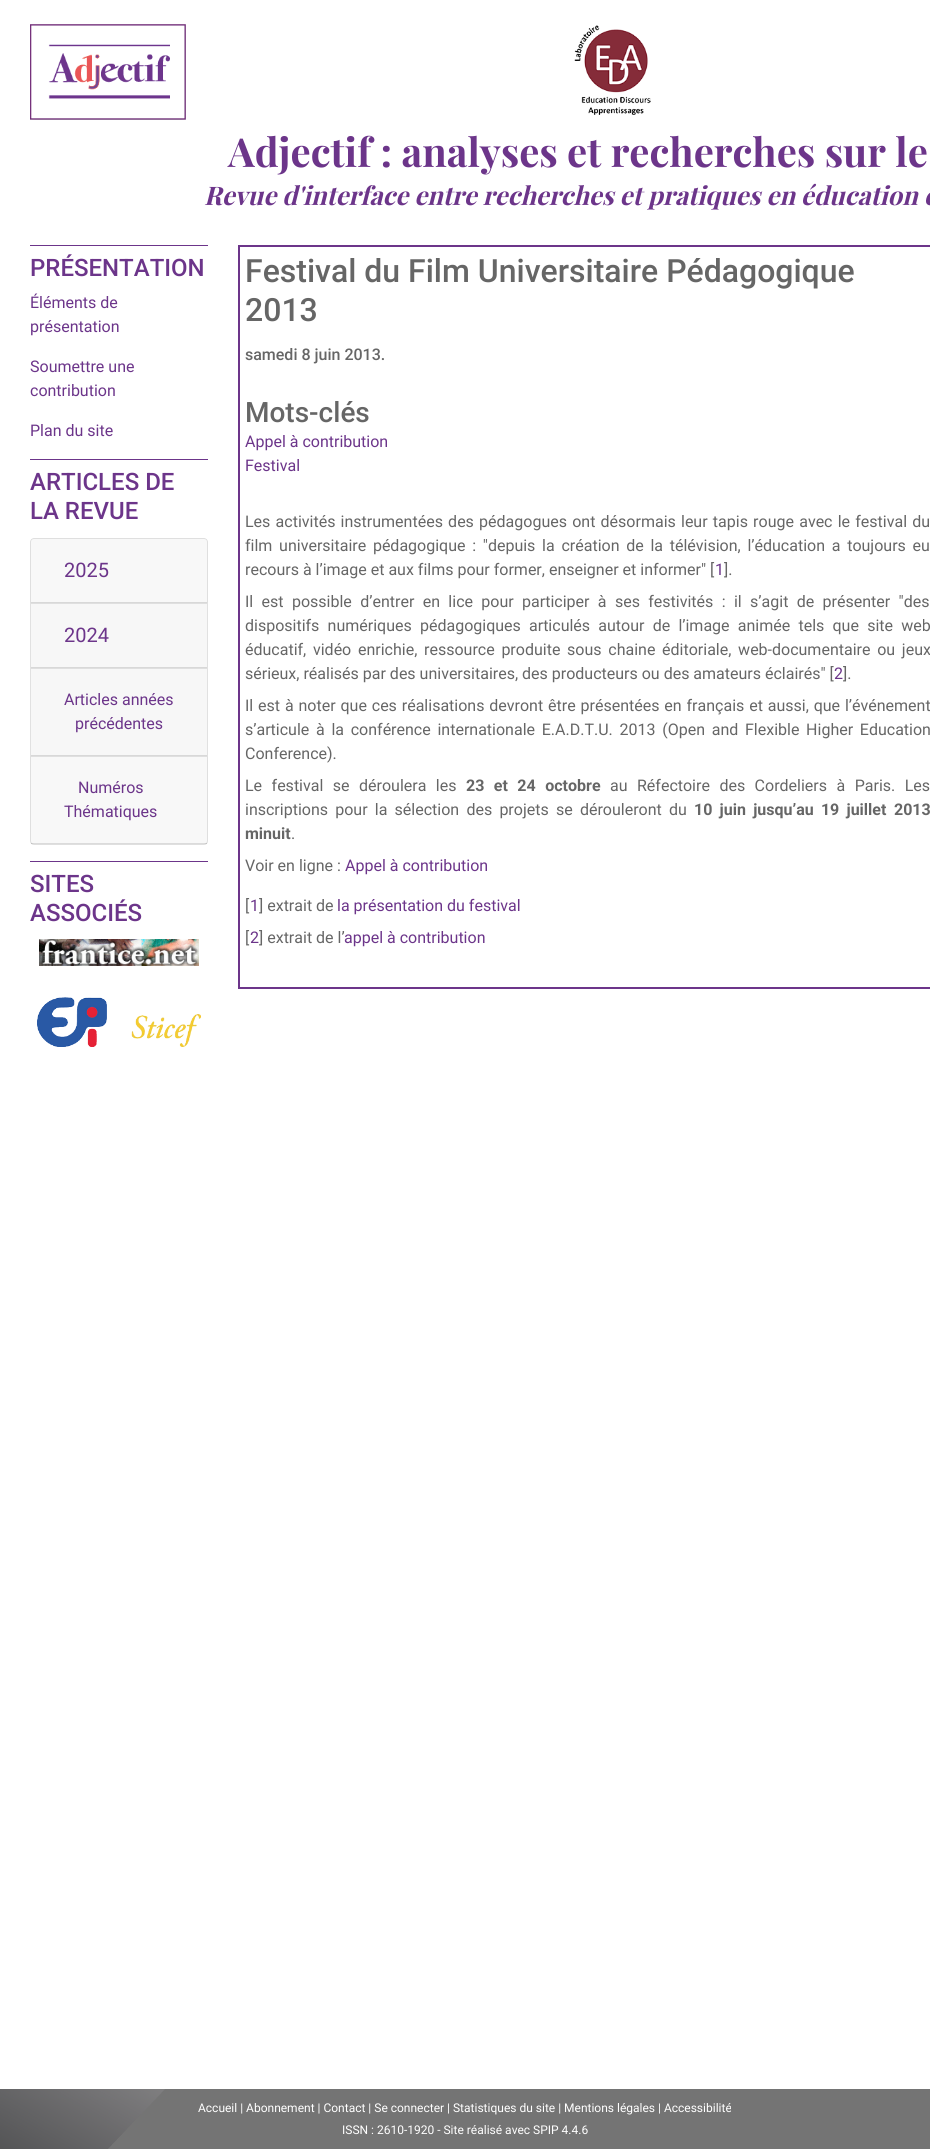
#include <cairo.h>
#include <math.h>
#include <stddef.h>

static cairo_t *ctx;

static void use_color(int r, int g, int b) {
    cairo_set_source_rgb(ctx, r / 255.0, g / 255.0, b / 255.0);
}

static void spaced_text(double x, double y, const char *s, double letter, double word) {
    cairo_move_to(ctx, x, y);
    while (*s) {
        char ch[5] = {0};
        int n = 0;
        do ch[n++] = *s++; while ((*s & 0xC0) == 0x80);
        cairo_show_text(ctx, ch);
        cairo_rel_move_to(ctx, letter + word * (*ch == ' '), 0);
    }
}

static void picture(const char *path, double x, double y, double w, double h) {
    cairo_surface_t *image = cairo_image_surface_create_from_png(path);
    cairo_save(ctx);
    cairo_set_source_surface(ctx, image, x, y);
    cairo_rectangle(ctx, x, y, w, h);
    cairo_fill(ctx);
    cairo_restore(ctx);
    cairo_surface_destroy(image);
}

int main(void) {
    cairo_surface_t *surface = cairo_image_surface_create(CAIRO_FORMAT_RGB24, 930, 2149);
    ctx = cairo_create(surface);
    cairo_font_options_t *options = cairo_font_options_create();
    cairo_font_options_set_hint_metrics(options, CAIRO_HINT_METRICS_OFF);
    cairo_font_options_set_hint_style(options, CAIRO_HINT_STYLE_NONE);
    cairo_set_font_options(ctx, options);
    cairo_set_miter_limit(ctx, 4);
    use_color(255, 255, 255);
    cairo_paint(ctx);
    picture("img1.png", 30, 24, 156, 96);
    picture("img2.png", 574, 25, 77, 90);
    cairo_select_font_face(ctx, "Playfair Display", CAIRO_FONT_SLANT_NORMAL, CAIRO_FONT_WEIGHT_BOLD);
    cairo_set_font_size(ctx, 40);
    use_color(108, 53, 138);
    cairo_move_to(ctx, 228, 167);
    cairo_show_text(ctx, "Adjectif : analyses et recherches sur le");
    cairo_select_font_face(ctx, "Playfair Display", CAIRO_FONT_SLANT_ITALIC, CAIRO_FONT_WEIGHT_BOLD);
    cairo_set_font_size(ctx, 25.6);
    cairo_move_to(ctx, 204, 205);
    cairo_show_text(ctx, "Revue d'interface entre recherches et pratiques en éducation e");
    cairo_rectangle(ctx, 30, 245, 178, 1);
    cairo_fill(ctx);
    cairo_select_font_face(ctx, "Roboto Medium", CAIRO_FONT_SLANT_NORMAL, CAIRO_FONT_WEIGHT_NORMAL);
    cairo_set_font_size(ctx, 24);
    cairo_move_to(ctx, 30, 276);
    cairo_show_text(ctx, "PRÉSENTATION");
    cairo_select_font_face(ctx, "Roboto", CAIRO_FONT_SLANT_NORMAL, CAIRO_FONT_WEIGHT_NORMAL);
    cairo_set_font_size(ctx, 16);
    cairo_move_to(ctx, 30, 308);
    cairo_show_text(ctx, "Éléments de");
    cairo_move_to(ctx, 30, 332);
    cairo_show_text(ctx, "présentation");
    cairo_move_to(ctx, 30, 372);
    cairo_show_text(ctx, "Soumettre une");
    cairo_move_to(ctx, 30, 396);
    cairo_show_text(ctx, "contribution");
    cairo_move_to(ctx, 30, 436);
    cairo_show_text(ctx, "Plan du site");
    cairo_rectangle(ctx, 30, 459, 178, 1);
    cairo_fill(ctx);
    cairo_select_font_face(ctx, "Roboto Medium", CAIRO_FONT_SLANT_NORMAL, CAIRO_FONT_WEIGHT_NORMAL);
    cairo_set_font_size(ctx, 24);
    cairo_move_to(ctx, 30, 490);
    cairo_show_text(ctx, "ARTICLES DE");
    cairo_move_to(ctx, 30, 519);
    cairo_show_text(ctx, "LA REVUE");
    use_color(223, 223, 223);
    cairo_set_fill_rule(ctx, CAIRO_FILL_RULE_EVEN_ODD);
    cairo_new_path(ctx);
    cairo_move_to(ctx, 34, 538);
    cairo_line_to(ctx, 204, 538);
    cairo_curve_to(ctx, 206, 538, 208, 540, 208, 542);
    cairo_line_to(ctx, 208, 603);
    cairo_line_to(ctx, 30, 603);
    cairo_line_to(ctx, 30, 542);
    cairo_curve_to(ctx, 30, 540, 32, 538, 34, 538);
    cairo_close_path(ctx);
    cairo_move_to(ctx, 34, 539);
    cairo_line_to(ctx, 204, 539);
    cairo_curve_to(ctx, 206, 539, 207, 540, 207, 542);
    cairo_line_to(ctx, 207, 603);
    cairo_line_to(ctx, 31, 603);
    cairo_line_to(ctx, 31, 542);
    cairo_curve_to(ctx, 31, 540, 32, 539, 34, 539);
    cairo_close_path(ctx);
    cairo_fill(ctx);
    cairo_set_source_rgba(ctx, 0, 0, 0, 0.03);
    cairo_rectangle(ctx, 31, 539, 176, 63);
    cairo_fill(ctx);
    use_color(216, 216, 216);
    cairo_rectangle(ctx, 31, 602, 176, 1);
    cairo_fill(ctx);
    cairo_select_font_face(ctx, "Roboto", CAIRO_FONT_SLANT_NORMAL, CAIRO_FONT_WEIGHT_NORMAL);
    cairo_set_font_size(ctx, 20);
    use_color(108, 53, 138);
    cairo_move_to(ctx, 64, 577);
    cairo_show_text(ctx, "2025");
    use_color(223, 223, 223);
    cairo_set_fill_rule(ctx, CAIRO_FILL_RULE_WINDING);
    cairo_new_path(ctx);
    cairo_move_to(ctx, 30, 603);
    cairo_line_to(ctx, 208, 603);
    cairo_line_to(ctx, 207, 604);
    cairo_line_to(ctx, 31, 604);
    cairo_close_path(ctx);
    cairo_fill(ctx);
    cairo_set_source_rgba(ctx, 0, 0, 0, 0.12);
    cairo_new_path(ctx);
    cairo_move_to(ctx, 208, 603);
    cairo_line_to(ctx, 208, 668);
    cairo_line_to(ctx, 207, 668);
    cairo_line_to(ctx, 207, 604);
    cairo_close_path(ctx);
    cairo_fill(ctx);
    cairo_new_path(ctx);
    cairo_move_to(ctx, 30, 668);
    cairo_line_to(ctx, 30, 603);
    cairo_line_to(ctx, 31, 604);
    cairo_line_to(ctx, 31, 668);
    cairo_close_path(ctx);
    cairo_fill(ctx);
    use_color(247, 247, 247);
    cairo_rectangle(ctx, 31, 604, 176, 63);
    cairo_fill(ctx);
    use_color(216, 216, 216);
    cairo_rectangle(ctx, 31, 667, 176, 1);
    cairo_fill(ctx);
    use_color(108, 53, 138);
    cairo_move_to(ctx, 64, 642);
    cairo_show_text(ctx, "2024");
    use_color(223, 223, 223);
    cairo_new_path(ctx);
    cairo_move_to(ctx, 30, 668);
    cairo_line_to(ctx, 208, 668);
    cairo_line_to(ctx, 207, 669);
    cairo_line_to(ctx, 31, 669);
    cairo_close_path(ctx);
    cairo_fill(ctx);
    cairo_set_source_rgba(ctx, 0, 0, 0, 0.12);
    cairo_new_path(ctx);
    cairo_move_to(ctx, 208, 668);
    cairo_line_to(ctx, 208, 756);
    cairo_line_to(ctx, 207, 756);
    cairo_line_to(ctx, 207, 669);
    cairo_close_path(ctx);
    cairo_fill(ctx);
    cairo_new_path(ctx);
    cairo_move_to(ctx, 30, 756);
    cairo_line_to(ctx, 30, 668);
    cairo_line_to(ctx, 31, 669);
    cairo_line_to(ctx, 31, 756);
    cairo_close_path(ctx);
    cairo_fill(ctx);
    use_color(247, 247, 247);
    cairo_rectangle(ctx, 31, 669, 176, 86);
    cairo_fill(ctx);
    use_color(216, 216, 216);
    cairo_rectangle(ctx, 31, 755, 176, 1);
    cairo_fill(ctx);
    cairo_set_font_size(ctx, 16);
    use_color(108, 53, 138);
    cairo_move_to(ctx, 64, 705);
    cairo_show_text(ctx, "Articles années");
    cairo_move_to(ctx, 75, 729);
    cairo_show_text(ctx, "précédentes");
    cairo_new_path(ctx);
    cairo_move_to(ctx, 30.5, 756.5);
    cairo_line_to(ctx, 207.5, 756.5);
    cairo_line_to(ctx, 207.5, 841);
    cairo_curve_to(ctx, 207.5, 843, 206, 844.5, 204, 844.5);
    cairo_line_to(ctx, 34, 844.5);
    cairo_curve_to(ctx, 32, 844.5, 30.5, 843, 30.5, 841);
    cairo_close_path(ctx);
    use_color(223, 223, 223);
    cairo_set_line_width(ctx, 1);
    cairo_stroke(ctx);
    cairo_set_source_rgba(ctx, 0, 0, 0, 0.03);
    cairo_rectangle(ctx, 31, 757, 176, 87);
    cairo_fill(ctx);
    cairo_set_source_rgba(ctx, 0, 0, 0, 0.12);
    cairo_rectangle(ctx, 31, 843, 176, 1);
    cairo_fill(ctx);
    use_color(108, 53, 138);
    cairo_move_to(ctx, 78, 793);
    cairo_show_text(ctx, "Numéros");
    cairo_move_to(ctx, 64, 817);
    cairo_show_text(ctx, "Thématiques");
    cairo_rectangle(ctx, 30, 861, 178, 1);
    cairo_fill(ctx);
    cairo_select_font_face(ctx, "Roboto Medium", CAIRO_FONT_SLANT_NORMAL, CAIRO_FONT_WEIGHT_NORMAL);
    cairo_set_font_size(ctx, 24);
    cairo_move_to(ctx, 30, 892);
    cairo_show_text(ctx, "SITES");
    cairo_move_to(ctx, 30, 921);
    cairo_show_text(ctx, "ASSOCIÉS");
    picture("img3.png", 39, 939, 160, 27);
    picture("img4.png", 37, 997, 70, 50);
    picture("img5.png", 131, 1014, 70, 33);
    cairo_rectangle(ctx, 239, 246, 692, 742);
    cairo_set_line_width(ctx, 2);
    cairo_stroke(ctx);
    cairo_set_font_size(ctx, 32);
    use_color(102, 102, 102);
    cairo_move_to(ctx, 245, 282);
    cairo_show_text(ctx, "Festival du Film Universitaire Pédagogique");
    cairo_move_to(ctx, 245, 321);
    cairo_show_text(ctx, "2013");
    cairo_set_font_size(ctx, 16);
    cairo_move_to(ctx, 245, 360);
    cairo_show_text(ctx, "samedi 8 juin 2013.");
    cairo_set_font_size(ctx, 28);
    cairo_move_to(ctx, 245, 422);
    cairo_show_text(ctx, "Mots-clés");
    cairo_select_font_face(ctx, "Roboto", CAIRO_FONT_SLANT_NORMAL, CAIRO_FONT_WEIGHT_NORMAL);
    cairo_set_font_size(ctx, 16);
    use_color(108, 53, 138);
    cairo_move_to(ctx, 245, 447);
    cairo_show_text(ctx, "Appel à contribution");
    cairo_move_to(ctx, 245, 471);
    cairo_show_text(ctx, "Festival");
    use_color(102, 102, 102);
    spaced_text(245, 527, "Les activités instrumentées des pédagogues ont désormais leur tapis rouge avec le festival du", 0, 1.25);
    spaced_text(245, 551, "film universitaire pédagogique : \"depuis la création de la télévision, l’éducation a toujours eu", 0, 2.75);
    cairo_move_to(ctx, 245, 575);
    cairo_show_text(ctx, "recours à l’image et aux films pour former, enseigner et informer\" [");
    use_color(108, 53, 138);
    cairo_move_to(ctx, 715, 575);
    cairo_show_text(ctx, "1");
    use_color(102, 102, 102);
    cairo_move_to(ctx, 724, 575);
    cairo_show_text(ctx, "].");
    spaced_text(245, 607, "Il est possible d’entrer en lice pour participer à ses festivités : il s’agit de présenter \"des", 0, 4.4);
    spaced_text(245, 631, "dispositifs numériques pédagogiques articulés autour de l’image animée tels que site web", 0, 4.25);
    spaced_text(245, 655, "éducatif, vidéo enrichie, ressource produite sous chaine éditoriale, web-documentaire ou jeux", 0, 2.75);
    cairo_move_to(ctx, 245, 679);
    cairo_show_text(ctx, "sérieux, réalisés par des universitaires, des producteurs ou des amateurs éclairés\" [");
    use_color(108, 53, 138);
    cairo_move_to(ctx, 834, 679);
    cairo_show_text(ctx, "2");
    use_color(102, 102, 102);
    cairo_move_to(ctx, 843, 679);
    cairo_show_text(ctx, "].");
    spaced_text(245, 711, "Il est à noter que ces réalisations devront être présentées en français et aussi, que l’événement", 0, 0.9);
    spaced_text(245, 735, "s’articule à la conférence internationale E.A.D.T.U. 2013 (Open and Flexible Higher Education", 0, 2.75);
    cairo_move_to(ctx, 245, 759);
    cairo_show_text(ctx, "Conference).");
    spaced_text(245, 791, "Le festival se déroulera les", 0, 5.5);
    cairo_select_font_face(ctx, "Roboto", CAIRO_FONT_SLANT_NORMAL, CAIRO_FONT_WEIGHT_BOLD);
    spaced_text(466, 791, "23 et 24 octobre", 0, 5.5);
    cairo_select_font_face(ctx, "Roboto", CAIRO_FONT_SLANT_NORMAL, CAIRO_FONT_WEIGHT_NORMAL);
    spaced_text(610, 791, "au Réfectoire des Cordeliers à Paris. Les", 0, 5.5);
    spaced_text(245, 815, "inscriptions pour la sélection des projets se dérouleront du", 0, 3.25);
    cairo_select_font_face(ctx, "Roboto", CAIRO_FONT_SLANT_NORMAL, CAIRO_FONT_WEIGHT_BOLD);
    spaced_text(694, 815, "10 juin jusqu’au 19 juillet", 0, 3.25);
    cairo_move_to(ctx, 894, 815);
    cairo_show_text(ctx, "2013");
    cairo_move_to(ctx, 245, 839);
    cairo_show_text(ctx, "minuit");
    cairo_select_font_face(ctx, "Roboto", CAIRO_FONT_SLANT_NORMAL, CAIRO_FONT_WEIGHT_NORMAL);
    cairo_move_to(ctx, 291, 839);
    cairo_show_text(ctx, ".");
    cairo_move_to(ctx, 245, 871);
    cairo_show_text(ctx, "Voir en ligne :");
    use_color(108, 53, 138);
    cairo_move_to(ctx, 345, 871);
    cairo_show_text(ctx, "Appel à contribution");
    use_color(102, 102, 102);
    cairo_move_to(ctx, 245, 911);
    cairo_show_text(ctx, "[");
    use_color(108, 53, 138);
    cairo_move_to(ctx, 250, 911);
    cairo_show_text(ctx, "1");
    use_color(102, 102, 102);
    cairo_move_to(ctx, 259, 911);
    cairo_show_text(ctx, "] extrait de");
    use_color(108, 53, 138);
    cairo_move_to(ctx, 337, 911);
    cairo_show_text(ctx, "la présentation du festival");
    use_color(102, 102, 102);
    cairo_move_to(ctx, 245, 943);
    cairo_show_text(ctx, "[");
    use_color(108, 53, 138);
    cairo_move_to(ctx, 250, 943);
    cairo_show_text(ctx, "2");
    use_color(102, 102, 102);
    cairo_move_to(ctx, 259, 943);
    cairo_show_text(ctx, "] extrait de l’");
    use_color(108, 53, 138);
    cairo_move_to(ctx, 344, 943);
    cairo_show_text(ctx, "appel à contribution");
    use_color(116, 116, 116);
    cairo_rectangle(ctx, 0, 2089, 930, 60);
    cairo_fill(ctx);
    picture("img6.png", 0, 2089, 165, 60);
    cairo_set_font_size(ctx, 12);
    use_color(255, 255, 255);
    cairo_move_to(ctx, 198, 2112);
    cairo_show_text(ctx, "Accueil | Abonnement | Contact | Se connecter | Statistiques du site | Mentions légales | Accessibilité");
    cairo_move_to(ctx, 342, 2134);
    cairo_show_text(ctx, "ISSN : 2610-1920 - Site réalisé avec SPIP 4.4.6");
    cairo_surface_write_to_png(surface, "result.png");
    cairo_font_options_destroy(options);
    cairo_destroy(ctx);
    cairo_surface_destroy(surface);
    return 0;
}
